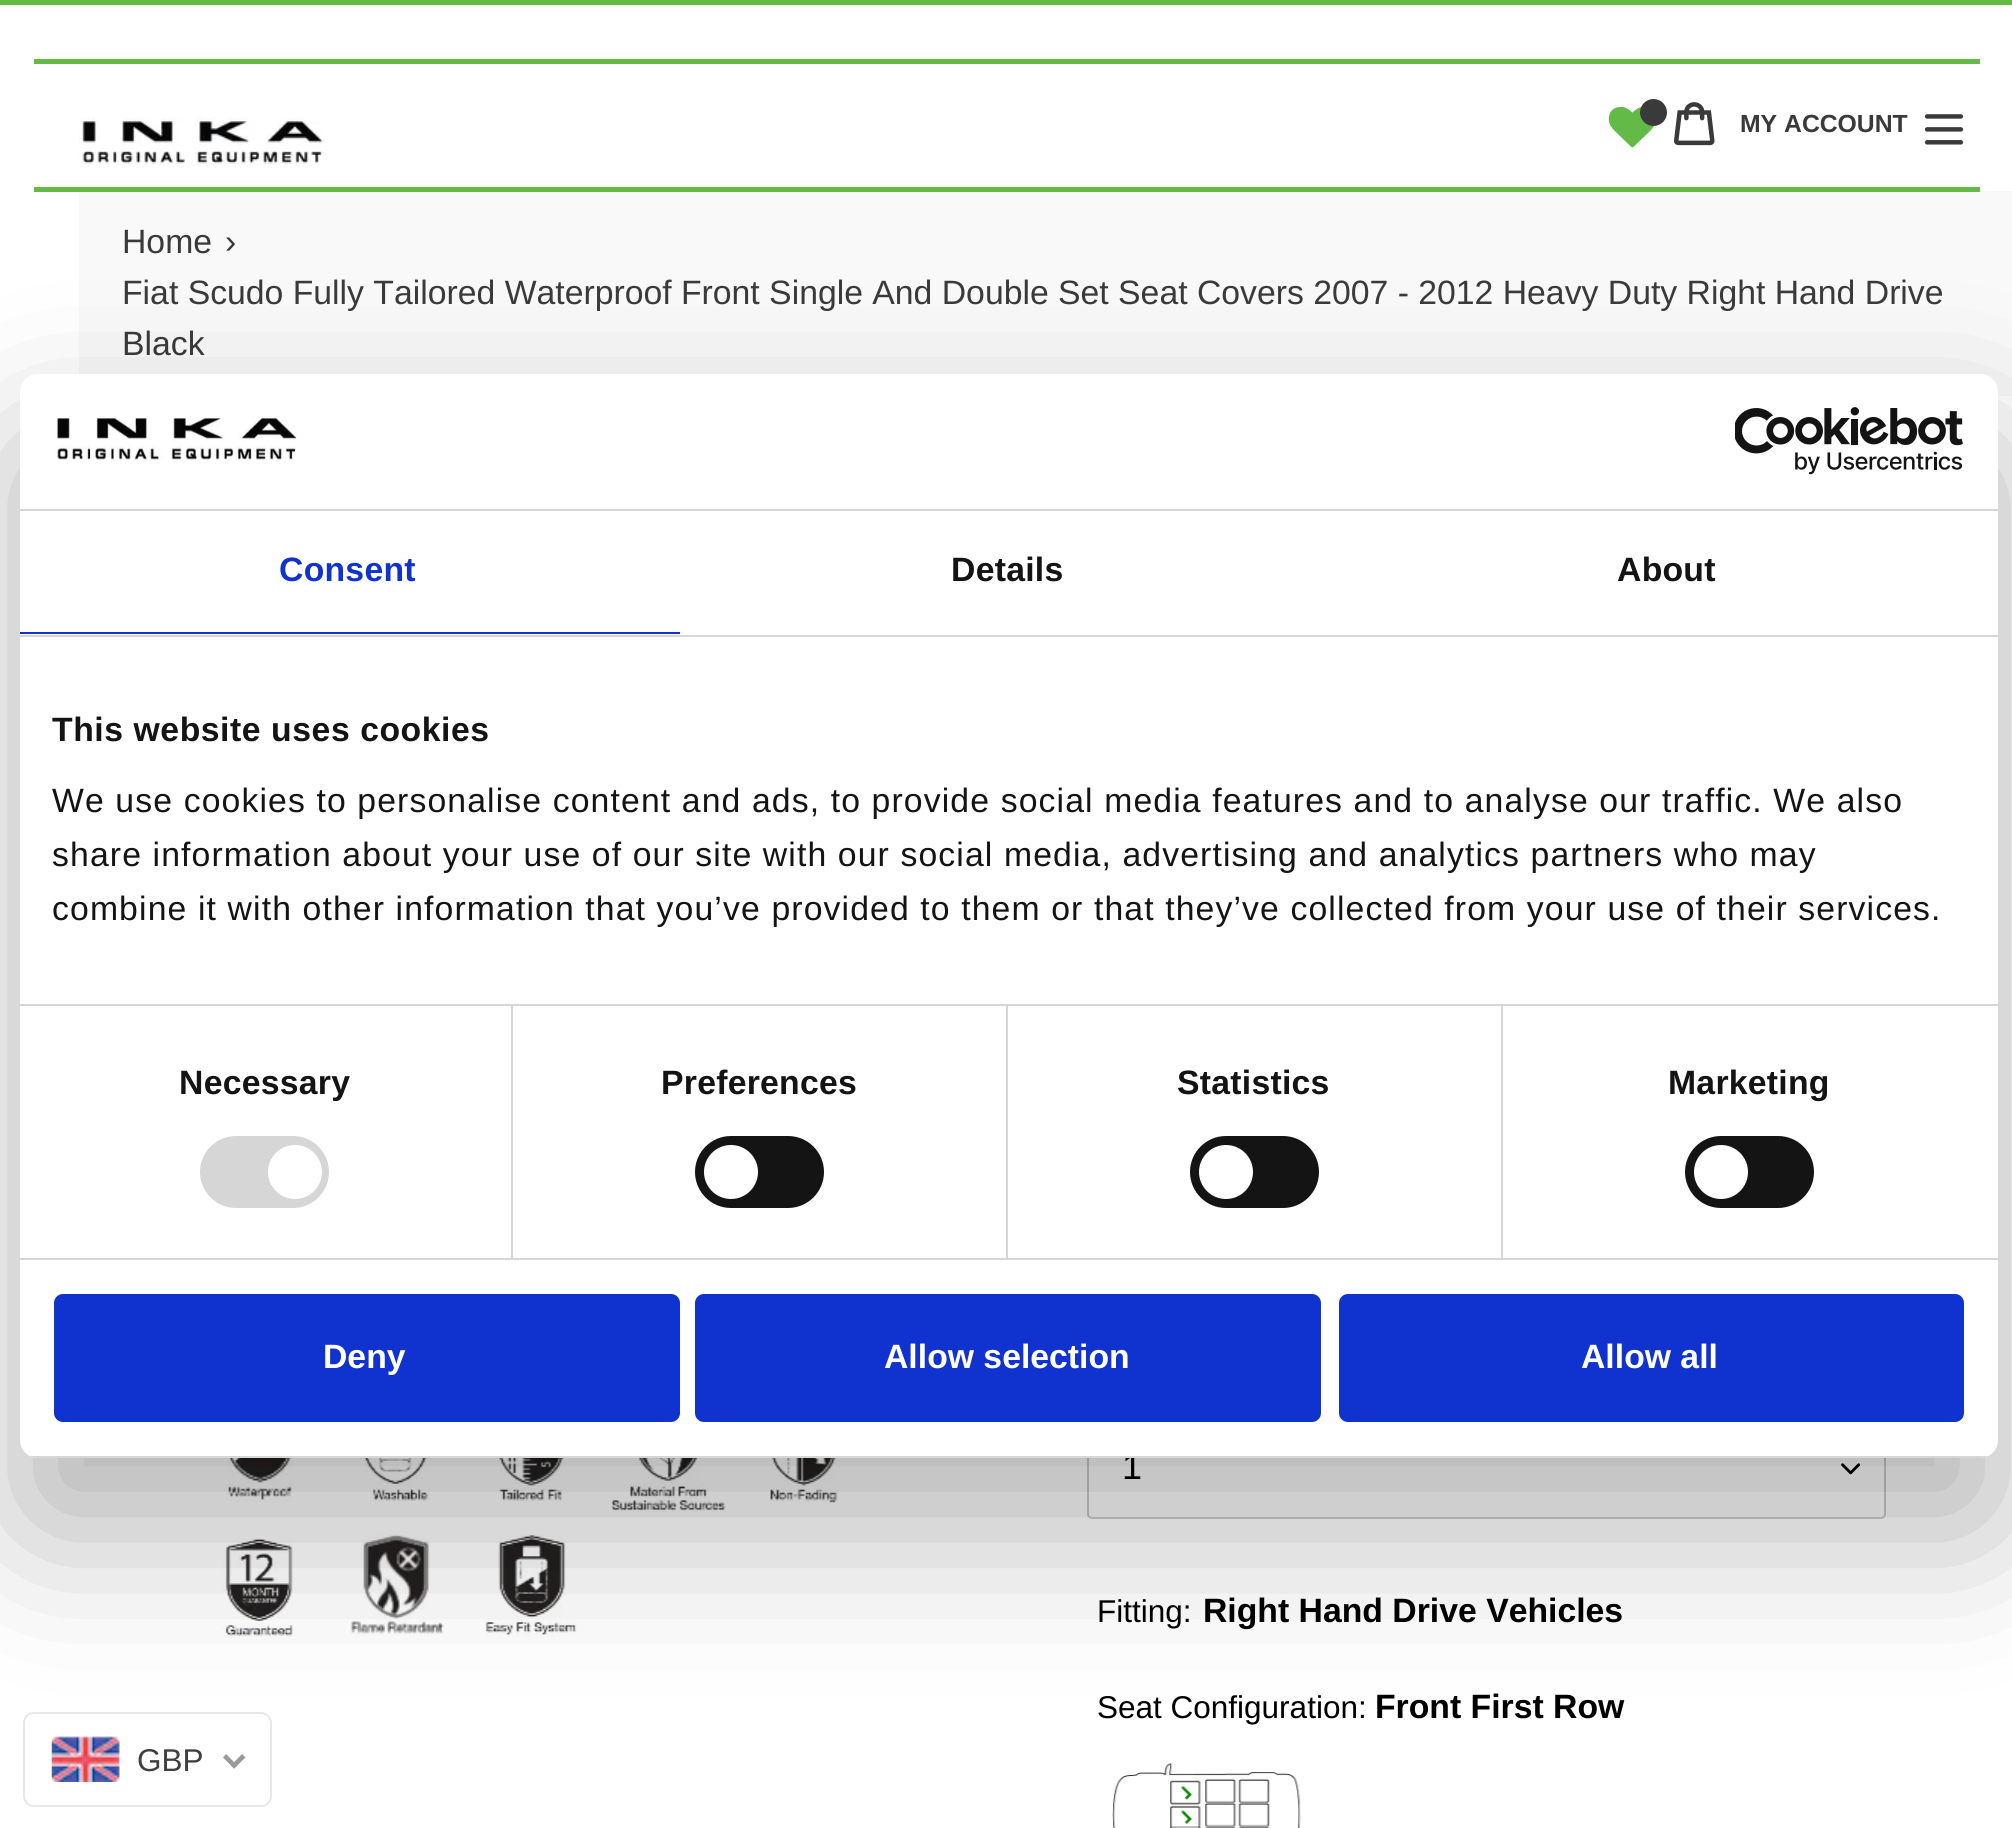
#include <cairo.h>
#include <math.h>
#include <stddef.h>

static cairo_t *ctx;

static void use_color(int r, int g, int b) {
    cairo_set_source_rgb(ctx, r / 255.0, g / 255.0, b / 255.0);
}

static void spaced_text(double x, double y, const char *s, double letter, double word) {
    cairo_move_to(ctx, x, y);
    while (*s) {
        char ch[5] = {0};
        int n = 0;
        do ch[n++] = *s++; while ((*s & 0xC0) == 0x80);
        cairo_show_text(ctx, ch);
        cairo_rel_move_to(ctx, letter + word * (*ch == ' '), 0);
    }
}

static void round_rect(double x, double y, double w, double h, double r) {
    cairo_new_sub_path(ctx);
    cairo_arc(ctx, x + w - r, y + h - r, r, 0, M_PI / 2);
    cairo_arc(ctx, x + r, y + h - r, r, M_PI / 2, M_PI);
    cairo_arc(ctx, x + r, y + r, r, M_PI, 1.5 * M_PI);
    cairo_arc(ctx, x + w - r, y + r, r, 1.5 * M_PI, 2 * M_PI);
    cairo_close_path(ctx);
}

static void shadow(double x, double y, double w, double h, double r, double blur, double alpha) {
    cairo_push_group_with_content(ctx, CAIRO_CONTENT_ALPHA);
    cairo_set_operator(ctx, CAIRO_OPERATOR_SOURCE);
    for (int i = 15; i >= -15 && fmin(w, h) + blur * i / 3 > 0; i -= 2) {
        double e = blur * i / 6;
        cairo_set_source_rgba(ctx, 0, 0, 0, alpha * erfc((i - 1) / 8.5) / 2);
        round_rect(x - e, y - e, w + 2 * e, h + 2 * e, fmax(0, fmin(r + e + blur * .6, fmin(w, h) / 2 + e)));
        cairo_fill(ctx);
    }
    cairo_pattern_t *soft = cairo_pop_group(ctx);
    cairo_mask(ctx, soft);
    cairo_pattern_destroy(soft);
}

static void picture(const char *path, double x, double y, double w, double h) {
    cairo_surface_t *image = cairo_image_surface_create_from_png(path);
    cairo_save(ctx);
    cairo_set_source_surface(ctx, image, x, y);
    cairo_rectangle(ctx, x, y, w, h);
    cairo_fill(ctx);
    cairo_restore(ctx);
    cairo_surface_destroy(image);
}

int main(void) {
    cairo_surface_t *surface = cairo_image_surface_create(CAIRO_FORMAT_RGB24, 2012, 1828);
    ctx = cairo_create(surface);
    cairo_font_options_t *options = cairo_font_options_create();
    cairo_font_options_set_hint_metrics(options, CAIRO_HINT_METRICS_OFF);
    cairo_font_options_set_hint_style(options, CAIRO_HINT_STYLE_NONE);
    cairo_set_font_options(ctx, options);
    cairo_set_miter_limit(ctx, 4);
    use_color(255, 255, 255);
    cairo_paint(ctx);
    use_color(99, 186, 70);
    cairo_rectangle(ctx, 0, 0, 2012, 5);
    cairo_fill(ctx);
    cairo_rectangle(ctx, 34, 59, 1946, 5);
    cairo_fill(ctx);
    use_color(249, 249, 249);
    cairo_rectangle(ctx, 79, 191, 1933, 205);
    cairo_fill(ctx);
    use_color(99, 186, 70);
    cairo_rectangle(ctx, 34, 187, 1946, 5);
    cairo_fill(ctx);
    picture("img1.png", 79, 117, 246, 50);
    picture("img2.png", 1608, 106, 47, 42);
    use_color(58, 58, 58);
    cairo_arc(ctx, 1653.5, 112.5, 13.5, 0, 2 * M_PI);
    cairo_fill(ctx);
    picture("img3.png", 1674, 102, 41, 44);
    cairo_select_font_face(ctx, "Liberation Sans", CAIRO_FONT_SLANT_NORMAL, CAIRO_FONT_WEIGHT_BOLD);
    cairo_set_font_size(ctx, 24.75);
    cairo_move_to(ctx, 1740, 132);
    cairo_show_text(ctx, "MY ACCOUNT");
    picture("img4.png", 1924, 114, 40, 31);
    cairo_select_font_face(ctx, "Liberation Sans", CAIRO_FONT_SLANT_NORMAL, CAIRO_FONT_WEIGHT_NORMAL);
    cairo_set_font_size(ctx, 33.75);
    cairo_move_to(ctx, 122, 253);
    cairo_show_text(ctx, "Home");
    cairo_move_to(ctx, 225, 253);
    cairo_show_text(ctx, "›");
    cairo_move_to(ctx, 122, 304);
    cairo_show_text(ctx, "Fiat Scudo Fully Tailored Waterproof Front Single And Double Set Seat Covers 2007 - 2012 Heavy Duty Right Hand Drive");
    cairo_move_to(ctx, 122, 355);
    cairo_show_text(ctx, "Black");
    picture("img7.png", 226, 1458, 68, 44);
    picture("img8.png", 364, 1458, 66, 44);
    picture("img9.png", 494, 1458, 72, 43);
    picture("img10.png", 611, 1458, 115, 54);
    picture("img11.png", 770, 1458, 68, 45);
    picture("img12.png", 222, 1538, 71, 99);
    picture("img13.png", 350, 1534, 94, 100);
    picture("img14.png", 485, 1535, 92, 102);
    picture("img15.png", 1841, 1463, 20, 12);
    round_rect(1088, 1421, 797, 97, 4);
    use_color(204, 204, 204);
    cairo_stroke(ctx);
    round_rect(24, 1713, 247, 93, 10);
    use_color(232, 232, 232);
    cairo_stroke(ctx);
    picture("img17.png", 51, 1736, 69, 46);
    use_color(153, 153, 153);
    cairo_new_path(ctx);
    cairo_move_to(ctx, 242, 1754);
    cairo_line_to(ctx, 245.5, 1757.5);
    cairo_line_to(ctx, 234, 1768.5);
    cairo_line_to(ctx, 231, 1765.5);
    cairo_close_path(ctx);
    cairo_fill(ctx);
    cairo_new_path(ctx);
    cairo_move_to(ctx, 226, 1754);
    cairo_line_to(ctx, 237.5, 1765.5);
    cairo_line_to(ctx, 234, 1768.5);
    cairo_line_to(ctx, 223, 1757.5);
    cairo_close_path(ctx);
    cairo_fill(ctx);
    use_color(0, 0, 0);
    shadow(20, 446, 1978, 1084, 18, 76.5, 0.3);
    cairo_set_font_size(ctx, 36);
    use_color(0, 0, 0);
    cairo_move_to(ctx, 1122, 1479);
    cairo_show_text(ctx, "1");
    use_color(255, 255, 255);
    round_rect(20, 374, 1978, 1084, 18);
    cairo_fill(ctx);
    use_color(214, 214, 214);
    cairo_rectangle(ctx, 20, 509, 1978, 2);
    cairo_fill(ctx);
    picture("img5.png", 55, 417, 242, 44);
    picture("img6.png", 1735, 407, 228, 68);
    cairo_rectangle(ctx, 20, 635, 1978, 2);
    cairo_fill(ctx);
    use_color(16, 50, 207);
    cairo_rectangle(ctx, 20, 632, 660, 2);
    cairo_fill(ctx);
    cairo_select_font_face(ctx, "Liberation Sans", CAIRO_FONT_SLANT_NORMAL, CAIRO_FONT_WEIGHT_BOLD);
    cairo_set_font_size(ctx, 33.75);
    spaced_text(279, 581, "Consent", 0.25, 0);
    use_color(20, 20, 20);
    spaced_text(951, 581, "Details", 0.25, 0);
    spaced_text(1617, 581, "About", 0.25, 0);
    use_color(214, 214, 214);
    cairo_rectangle(ctx, 20, 1004, 1978, 2);
    cairo_fill(ctx);
    use_color(20, 20, 20);
    spaced_text(52, 741, "This website uses cookies", 0.55, 0);
    cairo_select_font_face(ctx, "Liberation Sans", CAIRO_FONT_SLANT_NORMAL, CAIRO_FONT_WEIGHT_NORMAL);
    spaced_text(52, 812, "We use cookies to personalise content and ads, to provide social media features and to analyse our traffic. We also", 1.12, 0);
    spaced_text(52, 866, "share information about your use of our site with our social media, advertising and analytics partners who may", 1.12, 0);
    spaced_text(52, 920, "combine it with other information that you’ve provided to them or that they’ve collected from your use of their services.", 1.12, 0);
    use_color(214, 214, 214);
    cairo_rectangle(ctx, 20, 1258, 1978, 2);
    cairo_fill(ctx);
    cairo_rectangle(ctx, 511, 1006, 2, 252);
    cairo_fill(ctx);
    cairo_select_font_face(ctx, "Liberation Sans", CAIRO_FONT_SLANT_NORMAL, CAIRO_FONT_WEIGHT_BOLD);
    use_color(20, 20, 20);
    spaced_text(179, 1094, "Necessary", 0.25, 0);
    use_color(214, 214, 214);
    round_rect(200, 1136, 129, 72, 36);
    cairo_fill(ctx);
    use_color(255, 255, 255);
    cairo_arc(ctx, 295, 1172, 27, 0, 2 * M_PI);
    cairo_fill(ctx);
    use_color(214, 214, 214);
    cairo_rectangle(ctx, 1006, 1006, 2, 252);
    cairo_fill(ctx);
    use_color(20, 20, 20);
    spaced_text(661, 1094, "Preferences", 0.25, 0);
    round_rect(695, 1136, 129, 72, 36);
    cairo_fill(ctx);
    use_color(255, 255, 255);
    cairo_arc(ctx, 731, 1172, 27, 0, 2 * M_PI);
    cairo_fill(ctx);
    use_color(214, 214, 214);
    cairo_rectangle(ctx, 1501, 1006, 2, 252);
    cairo_fill(ctx);
    use_color(20, 20, 20);
    spaced_text(1177, 1094, "Statistics", 0.25, 0);
    round_rect(1190, 1136, 129, 72, 36);
    cairo_fill(ctx);
    use_color(255, 255, 255);
    cairo_arc(ctx, 1226, 1172, 27, 0, 2 * M_PI);
    cairo_fill(ctx);
    use_color(20, 20, 20);
    spaced_text(1668, 1094, "Marketing", 0.25, 0);
    round_rect(1685, 1136, 129, 72, 36);
    cairo_fill(ctx);
    use_color(255, 255, 255);
    cairo_arc(ctx, 1721, 1172, 27, 0, 2 * M_PI);
    cairo_fill(ctx);
    cairo_save(ctx);
    round_rect(20, 374, 1978, 1084, 18);
    cairo_clip(ctx);
    use_color(214, 214, 214);
    cairo_rectangle(ctx, 30, 1456, 1958, 2);
    cairo_fill(ctx);
    cairo_restore(ctx);
    use_color(16, 50, 207);
    round_rect(56.5, 1296.5, 621, 123, 6.5);
    cairo_fill_preserve(ctx);
    cairo_set_line_width(ctx, 5);
    cairo_stroke(ctx);
    use_color(255, 255, 255);
    cairo_move_to(ctx, 323, 1368);
    cairo_show_text(ctx, "Deny");
    use_color(16, 50, 207);
    round_rect(697.5, 1296.5, 621, 123, 6.5);
    cairo_fill_preserve(ctx);
    cairo_stroke(ctx);
    use_color(255, 255, 255);
    cairo_move_to(ctx, 884, 1368);
    cairo_show_text(ctx, "Allow selection");
    use_color(16, 50, 207);
    round_rect(1341.5, 1296.5, 620, 123, 6.5);
    cairo_fill_preserve(ctx);
    cairo_stroke(ctx);
    use_color(255, 255, 255);
    cairo_move_to(ctx, 1581, 1368);
    cairo_show_text(ctx, "Allow all");
    cairo_select_font_face(ctx, "Liberation Sans", CAIRO_FONT_SLANT_NORMAL, CAIRO_FONT_WEIGHT_NORMAL);
    cairo_set_font_size(ctx, 31.5);
    use_color(0, 0, 0);
    cairo_move_to(ctx, 1097, 1622);
    cairo_show_text(ctx, "Fitting:");
    cairo_select_font_face(ctx, "Liberation Sans", CAIRO_FONT_SLANT_NORMAL, CAIRO_FONT_WEIGHT_BOLD);
    cairo_set_font_size(ctx, 33.75);
    cairo_move_to(ctx, 1203, 1622);
    cairo_show_text(ctx, "Right Hand Drive Vehicles");
    cairo_select_font_face(ctx, "Liberation Sans", CAIRO_FONT_SLANT_NORMAL, CAIRO_FONT_WEIGHT_NORMAL);
    cairo_set_font_size(ctx, 31.5);
    cairo_move_to(ctx, 1097, 1718);
    cairo_show_text(ctx, "Seat Configuration:");
    cairo_select_font_face(ctx, "Liberation Sans", CAIRO_FONT_SLANT_NORMAL, CAIRO_FONT_WEIGHT_BOLD);
    cairo_set_font_size(ctx, 33.75);
    cairo_move_to(ctx, 1375, 1718);
    cairo_show_text(ctx, "Front First Row");
    picture("img16.png", 1112, 1763, 189, 65);
    cairo_select_font_face(ctx, "Liberation Sans", CAIRO_FONT_SLANT_NORMAL, CAIRO_FONT_WEIGHT_NORMAL);
    cairo_set_font_size(ctx, 31.5);
    use_color(64, 63, 63);
    cairo_move_to(ctx, 137, 1771);
    cairo_show_text(ctx, "GBP");
    cairo_surface_write_to_png(surface, "result.png");
    cairo_font_options_destroy(options);
    cairo_destroy(ctx);
    cairo_surface_destroy(surface);
    return 0;
}
